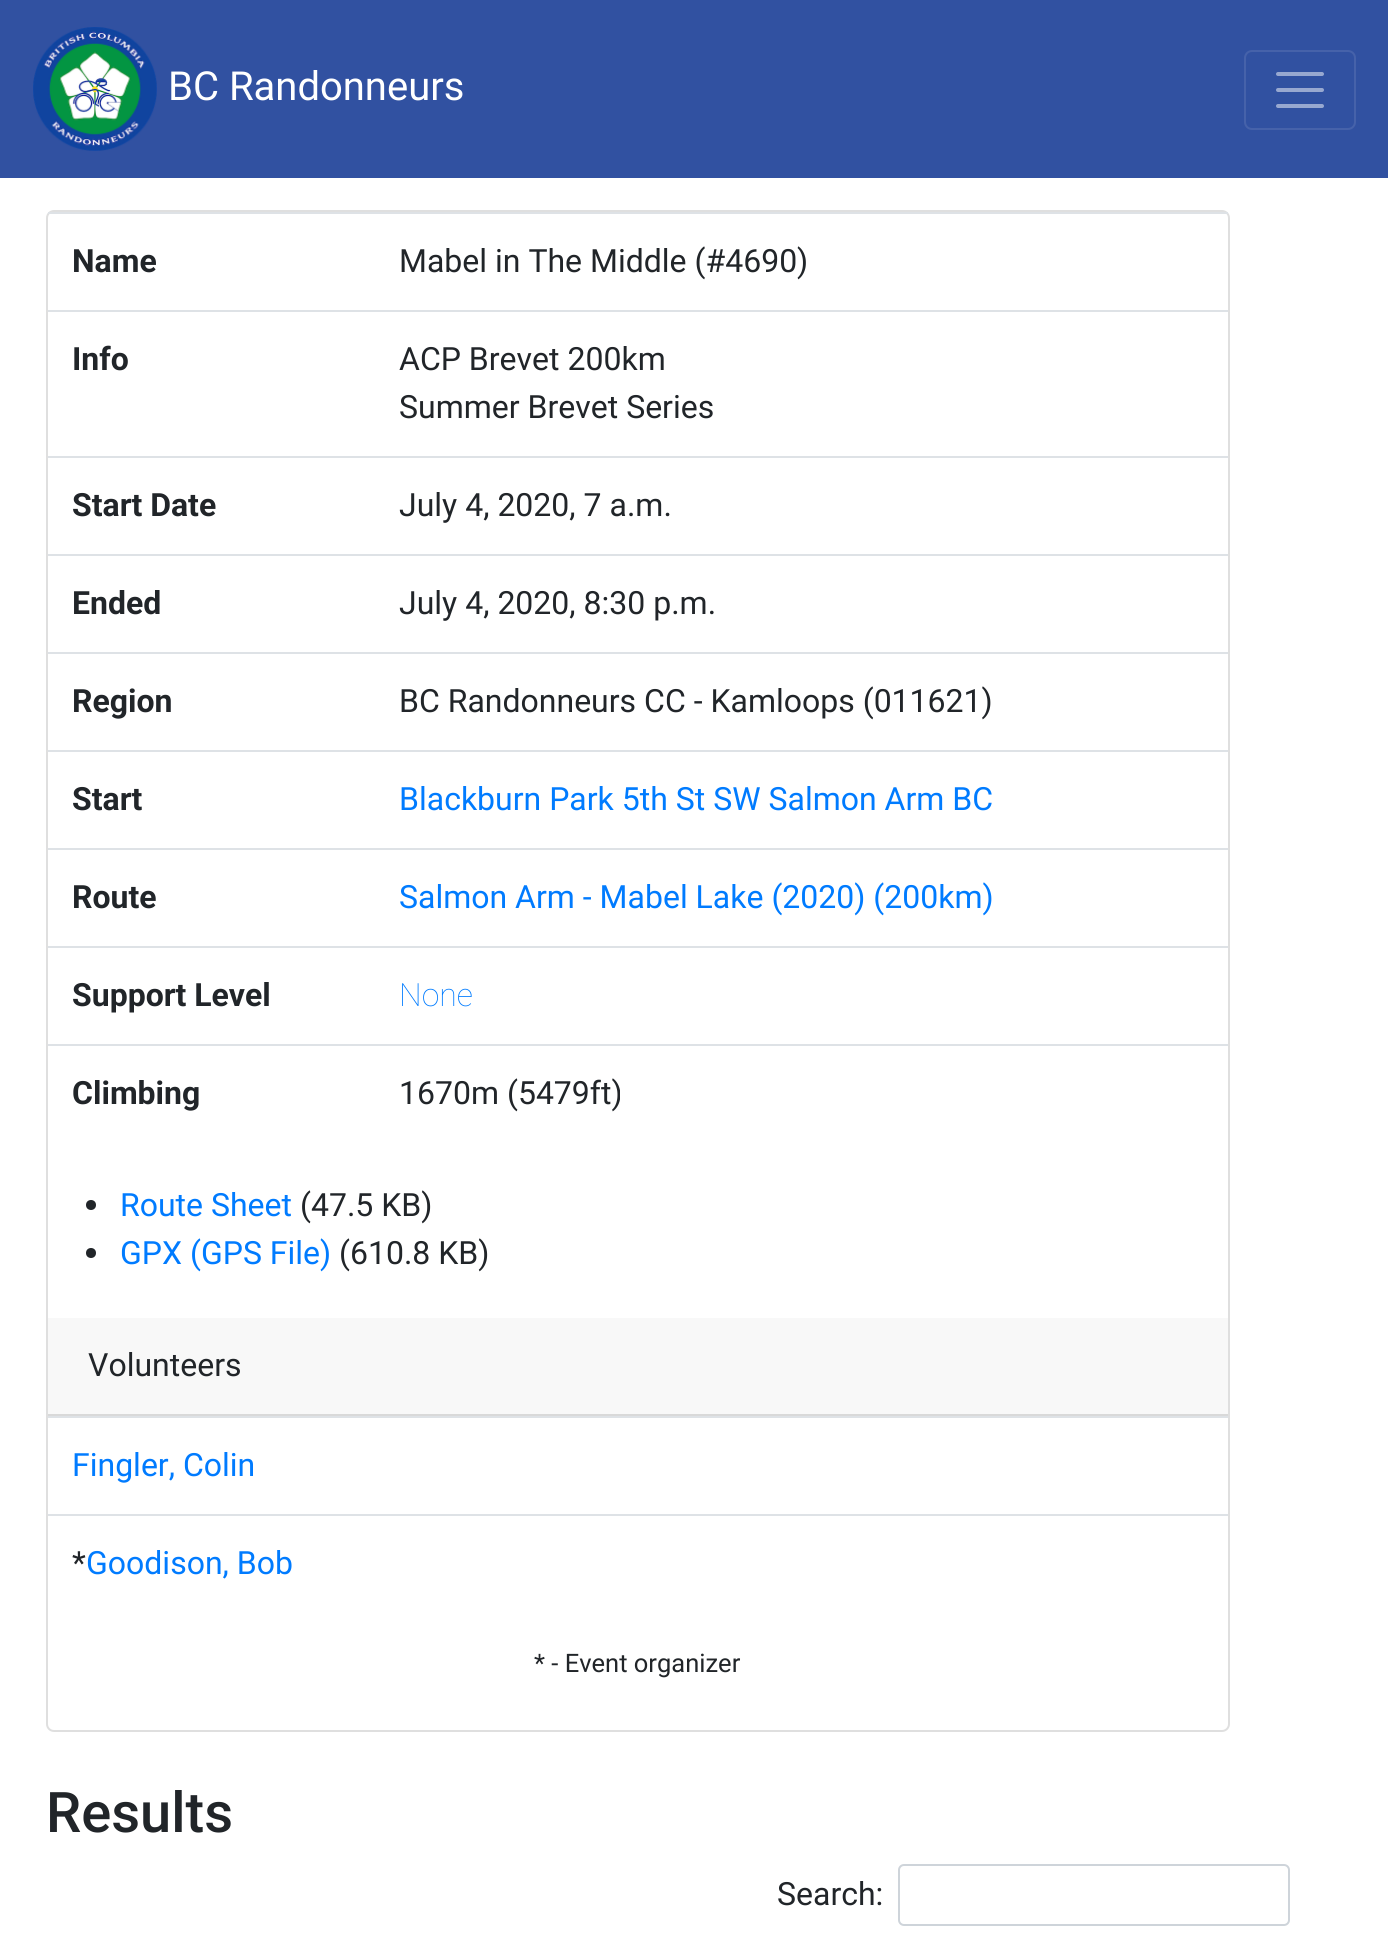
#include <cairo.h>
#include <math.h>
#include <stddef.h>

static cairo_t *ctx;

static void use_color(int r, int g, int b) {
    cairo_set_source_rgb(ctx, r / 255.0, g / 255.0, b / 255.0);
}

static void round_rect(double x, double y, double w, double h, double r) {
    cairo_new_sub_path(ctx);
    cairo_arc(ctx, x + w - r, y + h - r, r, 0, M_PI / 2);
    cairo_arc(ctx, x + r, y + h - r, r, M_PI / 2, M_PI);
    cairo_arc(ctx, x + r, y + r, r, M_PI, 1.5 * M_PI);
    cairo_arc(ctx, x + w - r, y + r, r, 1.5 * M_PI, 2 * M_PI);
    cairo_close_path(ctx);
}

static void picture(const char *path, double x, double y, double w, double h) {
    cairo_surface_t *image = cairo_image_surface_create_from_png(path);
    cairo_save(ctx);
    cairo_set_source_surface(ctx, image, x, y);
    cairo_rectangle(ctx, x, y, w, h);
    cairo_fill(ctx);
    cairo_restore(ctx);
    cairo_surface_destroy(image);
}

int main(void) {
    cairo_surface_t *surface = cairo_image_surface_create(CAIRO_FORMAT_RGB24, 1388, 1942);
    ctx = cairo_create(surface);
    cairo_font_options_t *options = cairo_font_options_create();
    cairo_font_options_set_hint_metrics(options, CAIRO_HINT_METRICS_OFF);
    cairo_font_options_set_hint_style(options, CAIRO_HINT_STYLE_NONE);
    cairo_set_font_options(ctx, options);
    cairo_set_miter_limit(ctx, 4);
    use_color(255, 255, 255);
    cairo_paint(ctx);
    use_color(49, 81, 161);
    cairo_rectangle(ctx, 0, 0, 1388, 178);
    cairo_fill(ctx);
    picture("img1.png", 33, 27, 124, 124);
    cairo_select_font_face(ctx, "Roboto", CAIRO_FONT_SLANT_NORMAL, CAIRO_FONT_WEIGHT_NORMAL);
    cairo_set_font_size(ctx, 40);
    use_color(255, 255, 255);
    cairo_move_to(ctx, 168, 100);
    cairo_show_text(ctx, "BC Randonneurs");
    round_rect(1245, 51, 110, 78, 7);
    use_color(70, 98, 170);
    cairo_stroke(ctx);
    cairo_new_path(ctx);
    cairo_move_to(ctx, 1278, 74);
    cairo_line_to(ctx, 1322, 74);
    cairo_move_to(ctx, 1278, 90);
    cairo_line_to(ctx, 1322, 90);
    cairo_move_to(ctx, 1278, 106);
    cairo_line_to(ctx, 1322, 106);
    use_color(152, 168, 208);
    cairo_set_line_width(ctx, 4);
    cairo_set_line_cap(ctx, CAIRO_LINE_CAP_ROUND);
    cairo_stroke(ctx);
    round_rect(47, 211, 1182, 1520, 7);
    use_color(223, 223, 223);
    cairo_set_line_width(ctx, 2);
    cairo_set_line_cap(ctx, CAIRO_LINE_CAP_BUTT);
    cairo_stroke(ctx);
    cairo_select_font_face(ctx, "Roboto", CAIRO_FONT_SLANT_NORMAL, CAIRO_FONT_WEIGHT_BOLD);
    cairo_set_font_size(ctx, 32);
    use_color(33, 37, 41);
    cairo_move_to(ctx, 72, 272);
    cairo_show_text(ctx, "Name");
    use_color(222, 226, 230);
    cairo_rectangle(ctx, 48, 212, 1180, 2);
    cairo_fill(ctx);
    cairo_select_font_face(ctx, "Roboto", CAIRO_FONT_SLANT_NORMAL, CAIRO_FONT_WEIGHT_NORMAL);
    use_color(33, 37, 41);
    cairo_move_to(ctx, 399, 272);
    cairo_show_text(ctx, "Mabel in The Middle (#4690)");
    cairo_select_font_face(ctx, "Roboto", CAIRO_FONT_SLANT_NORMAL, CAIRO_FONT_WEIGHT_BOLD);
    cairo_move_to(ctx, 72, 370);
    cairo_show_text(ctx, "Info");
    use_color(222, 226, 230);
    cairo_rectangle(ctx, 48, 310, 1180, 2);
    cairo_fill(ctx);
    cairo_select_font_face(ctx, "Roboto", CAIRO_FONT_SLANT_NORMAL, CAIRO_FONT_WEIGHT_NORMAL);
    use_color(33, 37, 41);
    cairo_move_to(ctx, 399, 370);
    cairo_show_text(ctx, "ACP Brevet 200km");
    cairo_move_to(ctx, 399, 418);
    cairo_show_text(ctx, "Summer Brevet Series");
    cairo_select_font_face(ctx, "Roboto", CAIRO_FONT_SLANT_NORMAL, CAIRO_FONT_WEIGHT_BOLD);
    cairo_move_to(ctx, 72, 516);
    cairo_show_text(ctx, "Start Date");
    use_color(222, 226, 230);
    cairo_rectangle(ctx, 48, 456, 1180, 2);
    cairo_fill(ctx);
    cairo_select_font_face(ctx, "Roboto", CAIRO_FONT_SLANT_NORMAL, CAIRO_FONT_WEIGHT_NORMAL);
    use_color(33, 37, 41);
    cairo_move_to(ctx, 399, 516);
    cairo_show_text(ctx, "July 4, 2020, 7 a.m.");
    cairo_select_font_face(ctx, "Roboto", CAIRO_FONT_SLANT_NORMAL, CAIRO_FONT_WEIGHT_BOLD);
    cairo_move_to(ctx, 72, 614);
    cairo_show_text(ctx, "Ended");
    use_color(222, 226, 230);
    cairo_rectangle(ctx, 48, 554, 1180, 2);
    cairo_fill(ctx);
    cairo_select_font_face(ctx, "Roboto", CAIRO_FONT_SLANT_NORMAL, CAIRO_FONT_WEIGHT_NORMAL);
    use_color(33, 37, 41);
    cairo_move_to(ctx, 399, 614);
    cairo_show_text(ctx, "July 4, 2020, 8:30 p.m.");
    cairo_select_font_face(ctx, "Roboto", CAIRO_FONT_SLANT_NORMAL, CAIRO_FONT_WEIGHT_BOLD);
    cairo_move_to(ctx, 72, 712);
    cairo_show_text(ctx, "Region");
    use_color(222, 226, 230);
    cairo_rectangle(ctx, 48, 652, 1180, 2);
    cairo_fill(ctx);
    cairo_select_font_face(ctx, "Roboto", CAIRO_FONT_SLANT_NORMAL, CAIRO_FONT_WEIGHT_NORMAL);
    use_color(33, 37, 41);
    cairo_move_to(ctx, 399, 712);
    cairo_show_text(ctx, "BC Randonneurs CC - Kamloops (011621)");
    cairo_select_font_face(ctx, "Roboto", CAIRO_FONT_SLANT_NORMAL, CAIRO_FONT_WEIGHT_BOLD);
    cairo_move_to(ctx, 72, 810);
    cairo_show_text(ctx, "Start");
    use_color(222, 226, 230);
    cairo_rectangle(ctx, 48, 750, 1180, 2);
    cairo_fill(ctx);
    cairo_select_font_face(ctx, "Roboto", CAIRO_FONT_SLANT_NORMAL, CAIRO_FONT_WEIGHT_NORMAL);
    use_color(0, 123, 255);
    cairo_move_to(ctx, 399, 810);
    cairo_show_text(ctx, "Blackburn Park 5th St SW Salmon Arm BC");
    cairo_select_font_face(ctx, "Roboto", CAIRO_FONT_SLANT_NORMAL, CAIRO_FONT_WEIGHT_BOLD);
    use_color(33, 37, 41);
    cairo_move_to(ctx, 72, 908);
    cairo_show_text(ctx, "Route");
    use_color(222, 226, 230);
    cairo_rectangle(ctx, 48, 848, 1180, 2);
    cairo_fill(ctx);
    cairo_select_font_face(ctx, "Roboto", CAIRO_FONT_SLANT_NORMAL, CAIRO_FONT_WEIGHT_NORMAL);
    use_color(0, 123, 255);
    cairo_move_to(ctx, 399, 908);
    cairo_show_text(ctx, "Salmon Arm - Mabel Lake (2020) (200km)");
    cairo_select_font_face(ctx, "Roboto", CAIRO_FONT_SLANT_NORMAL, CAIRO_FONT_WEIGHT_BOLD);
    use_color(33, 37, 41);
    cairo_move_to(ctx, 72, 1006);
    cairo_show_text(ctx, "Support Level");
    use_color(222, 226, 230);
    cairo_rectangle(ctx, 48, 946, 1180, 2);
    cairo_fill(ctx);
    cairo_select_font_face(ctx, "Roboto Thin", CAIRO_FONT_SLANT_NORMAL, CAIRO_FONT_WEIGHT_NORMAL);
    use_color(0, 123, 255);
    cairo_move_to(ctx, 399, 1006);
    cairo_show_text(ctx, "None");
    cairo_select_font_face(ctx, "Roboto", CAIRO_FONT_SLANT_NORMAL, CAIRO_FONT_WEIGHT_BOLD);
    use_color(33, 37, 41);
    cairo_move_to(ctx, 72, 1104);
    cairo_show_text(ctx, "Climbing");
    use_color(222, 226, 230);
    cairo_rectangle(ctx, 48, 1044, 1180, 2);
    cairo_fill(ctx);
    cairo_select_font_face(ctx, "Roboto", CAIRO_FONT_SLANT_NORMAL, CAIRO_FONT_WEIGHT_NORMAL);
    use_color(33, 37, 41);
    cairo_move_to(ctx, 399, 1104);
    cairo_show_text(ctx, "1670m (5479ft)");
    cairo_new_path(ctx);
    cairo_arc(ctx, 91, 1205, 5, 0, 2 * M_PI);
    cairo_fill(ctx);
    use_color(0, 123, 255);
    cairo_move_to(ctx, 120, 1216);
    cairo_show_text(ctx, "Route Sheet");
    use_color(33, 37, 41);
    cairo_move_to(ctx, 300, 1216);
    cairo_show_text(ctx, "(47.5 KB)");
    cairo_new_path(ctx);
    cairo_arc(ctx, 91, 1253, 5, 0, 2 * M_PI);
    cairo_fill(ctx);
    use_color(0, 123, 255);
    cairo_move_to(ctx, 120, 1264);
    cairo_show_text(ctx, "GPX (GPS File)");
    use_color(33, 37, 41);
    cairo_move_to(ctx, 339, 1264);
    cairo_show_text(ctx, "(610.8 KB)");
    use_color(248, 248, 248);
    cairo_rectangle(ctx, 48, 1318, 1180, 96);
    cairo_fill(ctx);
    use_color(217, 217, 217);
    cairo_rectangle(ctx, 48, 1414, 1180, 2);
    cairo_fill(ctx);
    use_color(33, 37, 41);
    cairo_move_to(ctx, 88, 1376);
    cairo_show_text(ctx, "Volunteers");
    use_color(222, 226, 230);
    cairo_rectangle(ctx, 48, 1416, 1180, 2);
    cairo_fill(ctx);
    use_color(0, 123, 255);
    cairo_move_to(ctx, 72, 1476);
    cairo_show_text(ctx, "Fingler, Colin");
    use_color(222, 226, 230);
    cairo_rectangle(ctx, 48, 1514, 1180, 2);
    cairo_fill(ctx);
    use_color(33, 37, 41);
    cairo_move_to(ctx, 72, 1574);
    cairo_show_text(ctx, "*");
    use_color(0, 123, 255);
    cairo_move_to(ctx, 86, 1574);
    cairo_show_text(ctx, "Goodison, Bob");
    cairo_set_font_size(ctx, 25.5);
    use_color(33, 37, 41);
    cairo_move_to(ctx, 534, 1672);
    cairo_show_text(ctx, "* - Event organizer");
    cairo_select_font_face(ctx, "Roboto Medium", CAIRO_FONT_SLANT_NORMAL, CAIRO_FONT_WEIGHT_NORMAL);
    cairo_set_font_size(ctx, 56);
    cairo_move_to(ctx, 46, 1832);
    cairo_show_text(ctx, "Results");
    cairo_select_font_face(ctx, "Roboto", CAIRO_FONT_SLANT_NORMAL, CAIRO_FONT_WEIGHT_NORMAL);
    cairo_set_font_size(ctx, 32);
    cairo_move_to(ctx, 777, 1905);
    cairo_show_text(ctx, "Search:");
    round_rect(899, 1865, 390, 60, 5);
    use_color(206, 212, 218);
    cairo_stroke(ctx);
    cairo_surface_write_to_png(surface, "result.png");
    cairo_font_options_destroy(options);
    cairo_destroy(ctx);
    cairo_surface_destroy(surface);
    return 0;
}
